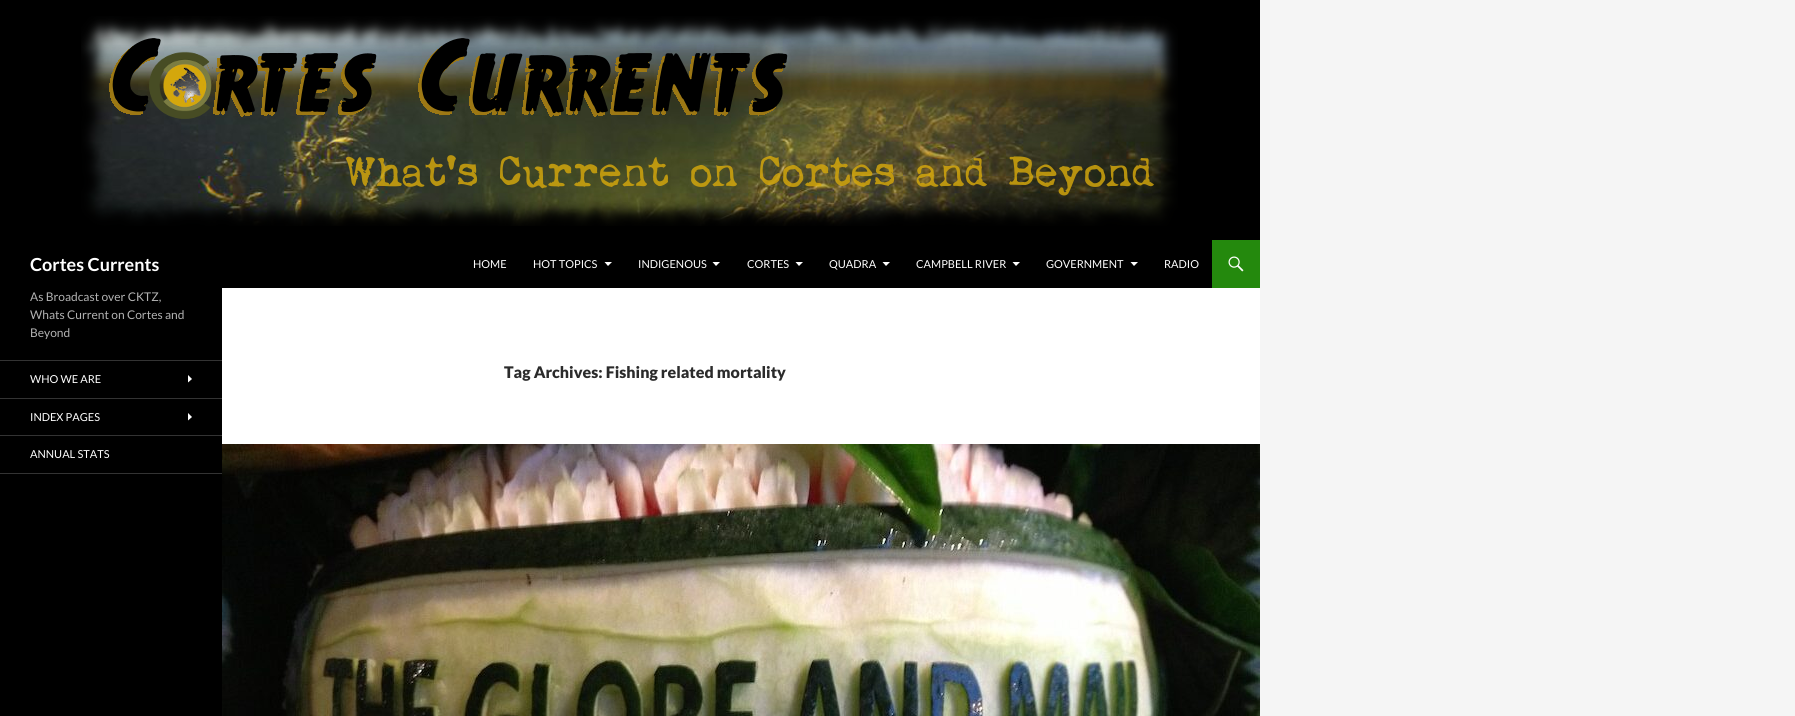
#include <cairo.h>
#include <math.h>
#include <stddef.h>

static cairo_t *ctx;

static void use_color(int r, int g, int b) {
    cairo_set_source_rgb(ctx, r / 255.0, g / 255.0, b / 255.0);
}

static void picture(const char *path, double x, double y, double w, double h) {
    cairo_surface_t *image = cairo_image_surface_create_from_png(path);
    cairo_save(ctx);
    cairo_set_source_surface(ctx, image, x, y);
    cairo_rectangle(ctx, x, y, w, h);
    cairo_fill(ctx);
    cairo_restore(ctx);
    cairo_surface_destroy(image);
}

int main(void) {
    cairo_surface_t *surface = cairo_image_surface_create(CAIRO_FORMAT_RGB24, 1795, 716);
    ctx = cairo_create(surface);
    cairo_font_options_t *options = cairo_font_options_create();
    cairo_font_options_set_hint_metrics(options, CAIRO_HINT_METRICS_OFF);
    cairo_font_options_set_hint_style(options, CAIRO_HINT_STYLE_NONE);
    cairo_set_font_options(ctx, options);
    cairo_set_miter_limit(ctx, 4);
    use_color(245, 245, 245);
    cairo_paint(ctx);
    use_color(255, 255, 255);
    cairo_rectangle(ctx, 222, 288, 1038, 156);
    cairo_fill(ctx);
    use_color(0, 0, 0);
    cairo_rectangle(ctx, 0, 0, 222, 716);
    cairo_fill(ctx);
    picture("img1.png", 81, 0, 1179, 240);
    cairo_rectangle(ctx, 222, 240, 990, 48);
    cairo_fill(ctx);
    cairo_select_font_face(ctx, "Lato", CAIRO_FONT_SLANT_NORMAL, CAIRO_FONT_WEIGHT_BOLD);
    cairo_set_font_size(ctx, 18);
    use_color(255, 255, 255);
    cairo_move_to(ctx, 30, 271);
    cairo_show_text(ctx, "Cortes Currents");
    cairo_select_font_face(ctx, "Lato", CAIRO_FONT_SLANT_NORMAL, CAIRO_FONT_WEIGHT_NORMAL);
    cairo_set_font_size(ctx, 11);
    cairo_move_to(ctx, 473, 268);
    cairo_show_text(ctx, "HOME");
    cairo_move_to(ctx, 533, 268);
    cairo_show_text(ctx, "HOT TOPICS");
    cairo_new_path(ctx);
    cairo_move_to(ctx, 604.5, 262);
    cairo_line_to(ctx, 608, 266);
    cairo_line_to(ctx, 612, 262);
    cairo_close_path(ctx);
    cairo_fill(ctx);
    cairo_move_to(ctx, 638, 268);
    cairo_show_text(ctx, "INDIGENOUS");
    cairo_new_path(ctx);
    cairo_move_to(ctx, 712.5, 262);
    cairo_line_to(ctx, 716, 266);
    cairo_line_to(ctx, 720, 262);
    cairo_close_path(ctx);
    cairo_fill(ctx);
    cairo_move_to(ctx, 747, 268);
    cairo_show_text(ctx, "CORTES");
    cairo_new_path(ctx);
    cairo_move_to(ctx, 795.5, 262);
    cairo_line_to(ctx, 799, 266);
    cairo_line_to(ctx, 803, 262);
    cairo_close_path(ctx);
    cairo_fill(ctx);
    cairo_move_to(ctx, 829, 268);
    cairo_show_text(ctx, "QUADRA");
    cairo_new_path(ctx);
    cairo_move_to(ctx, 882.5, 262);
    cairo_line_to(ctx, 886, 266);
    cairo_line_to(ctx, 890, 262);
    cairo_close_path(ctx);
    cairo_fill(ctx);
    cairo_move_to(ctx, 916, 268);
    cairo_show_text(ctx, "CAMPBELL RIVER");
    cairo_new_path(ctx);
    cairo_move_to(ctx, 1012.5, 262);
    cairo_line_to(ctx, 1016, 266);
    cairo_line_to(ctx, 1020, 262);
    cairo_close_path(ctx);
    cairo_fill(ctx);
    cairo_move_to(ctx, 1046, 268);
    cairo_show_text(ctx, "GOVERNMENT");
    cairo_new_path(ctx);
    cairo_move_to(ctx, 1130.5, 262);
    cairo_line_to(ctx, 1134, 266);
    cairo_line_to(ctx, 1138, 262);
    cairo_close_path(ctx);
    cairo_fill(ctx);
    cairo_move_to(ctx, 1164, 268);
    cairo_show_text(ctx, "RADIO");
    use_color(36, 137, 13);
    cairo_rectangle(ctx, 1212, 240, 48, 48);
    cairo_fill(ctx);
    picture("img2.png", 1228, 256, 16, 16);
    cairo_set_font_size(ctx, 12);
    use_color(179, 179, 179);
    cairo_move_to(ctx, 30, 301);
    cairo_show_text(ctx, "As Broadcast over CKTZ,");
    cairo_move_to(ctx, 30, 319);
    cairo_show_text(ctx, "Whats Current on Cortes and");
    cairo_move_to(ctx, 30, 337);
    cairo_show_text(ctx, "Beyond");
    use_color(51, 51, 51);
    cairo_rectangle(ctx, 0, 473, 222, 1);
    cairo_fill(ctx);
    cairo_rectangle(ctx, 0, 360, 222, 1);
    cairo_fill(ctx);
    cairo_set_font_size(ctx, 11);
    use_color(255, 255, 255);
    cairo_move_to(ctx, 30, 383);
    cairo_show_text(ctx, "WHO WE ARE");
    cairo_new_path(ctx);
    cairo_move_to(ctx, 188, 382.5);
    cairo_line_to(ctx, 192, 379);
    cairo_line_to(ctx, 188, 375);
    cairo_close_path(ctx);
    cairo_fill(ctx);
    use_color(51, 51, 51);
    cairo_rectangle(ctx, 0, 398, 222, 1);
    cairo_fill(ctx);
    use_color(255, 255, 255);
    cairo_move_to(ctx, 30, 421);
    cairo_show_text(ctx, "INDEX PAGES");
    cairo_new_path(ctx);
    cairo_move_to(ctx, 188, 420.5);
    cairo_line_to(ctx, 192, 417);
    cairo_line_to(ctx, 188, 413);
    cairo_close_path(ctx);
    cairo_fill(ctx);
    use_color(51, 51, 51);
    cairo_rectangle(ctx, 0, 435, 222, 1);
    cairo_fill(ctx);
    use_color(255, 255, 255);
    cairo_move_to(ctx, 30, 458);
    cairo_show_text(ctx, "ANNUAL STATS");
    cairo_select_font_face(ctx, "Lato Black", CAIRO_FONT_SLANT_NORMAL, CAIRO_FONT_WEIGHT_NORMAL);
    cairo_set_font_size(ctx, 16);
    use_color(43, 43, 43);
    cairo_move_to(ctx, 504, 378);
    cairo_show_text(ctx, "Tag Archives: Fishing related mortality");
    picture("img3.png", 222, 444, 1038, 272);
    cairo_surface_write_to_png(surface, "result.png");
    cairo_font_options_destroy(options);
    cairo_destroy(ctx);
    cairo_surface_destroy(surface);
    return 0;
}
